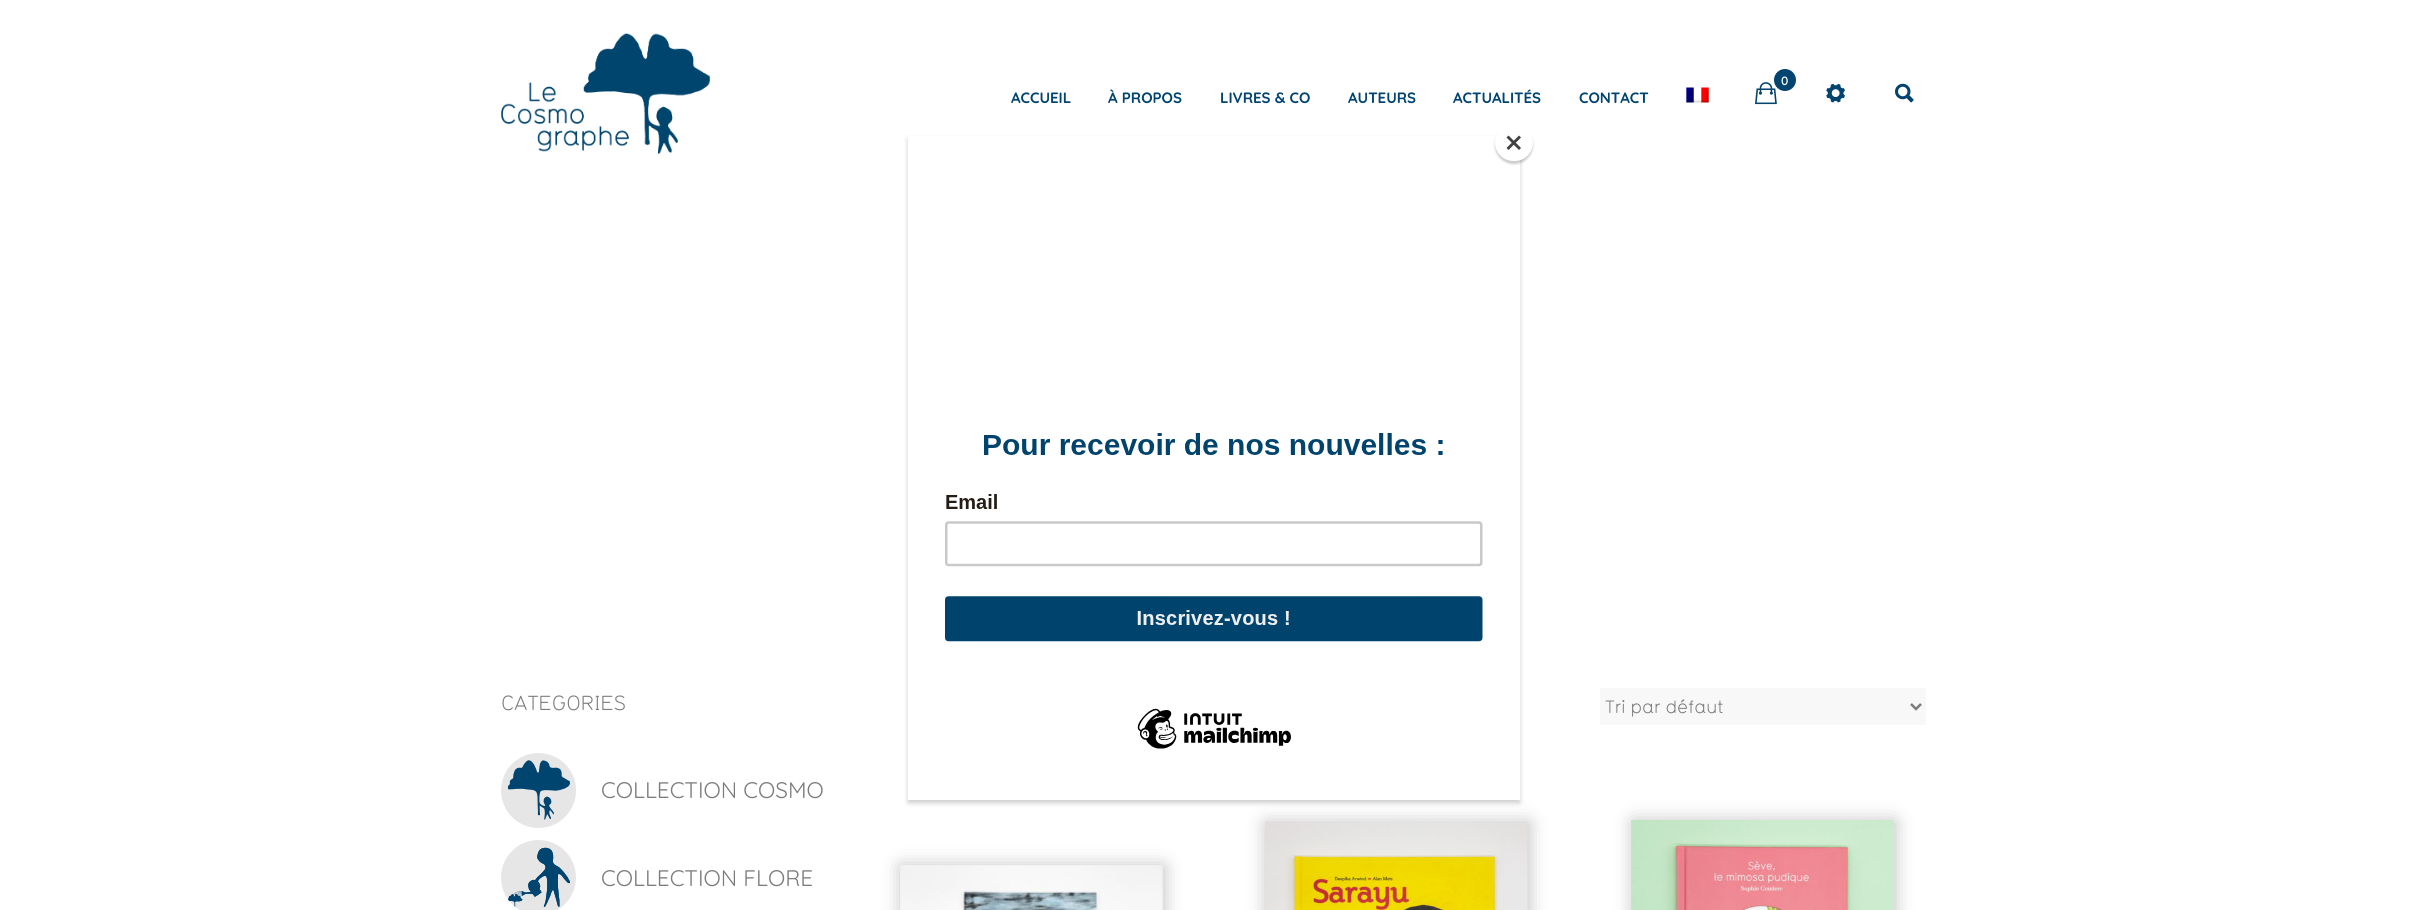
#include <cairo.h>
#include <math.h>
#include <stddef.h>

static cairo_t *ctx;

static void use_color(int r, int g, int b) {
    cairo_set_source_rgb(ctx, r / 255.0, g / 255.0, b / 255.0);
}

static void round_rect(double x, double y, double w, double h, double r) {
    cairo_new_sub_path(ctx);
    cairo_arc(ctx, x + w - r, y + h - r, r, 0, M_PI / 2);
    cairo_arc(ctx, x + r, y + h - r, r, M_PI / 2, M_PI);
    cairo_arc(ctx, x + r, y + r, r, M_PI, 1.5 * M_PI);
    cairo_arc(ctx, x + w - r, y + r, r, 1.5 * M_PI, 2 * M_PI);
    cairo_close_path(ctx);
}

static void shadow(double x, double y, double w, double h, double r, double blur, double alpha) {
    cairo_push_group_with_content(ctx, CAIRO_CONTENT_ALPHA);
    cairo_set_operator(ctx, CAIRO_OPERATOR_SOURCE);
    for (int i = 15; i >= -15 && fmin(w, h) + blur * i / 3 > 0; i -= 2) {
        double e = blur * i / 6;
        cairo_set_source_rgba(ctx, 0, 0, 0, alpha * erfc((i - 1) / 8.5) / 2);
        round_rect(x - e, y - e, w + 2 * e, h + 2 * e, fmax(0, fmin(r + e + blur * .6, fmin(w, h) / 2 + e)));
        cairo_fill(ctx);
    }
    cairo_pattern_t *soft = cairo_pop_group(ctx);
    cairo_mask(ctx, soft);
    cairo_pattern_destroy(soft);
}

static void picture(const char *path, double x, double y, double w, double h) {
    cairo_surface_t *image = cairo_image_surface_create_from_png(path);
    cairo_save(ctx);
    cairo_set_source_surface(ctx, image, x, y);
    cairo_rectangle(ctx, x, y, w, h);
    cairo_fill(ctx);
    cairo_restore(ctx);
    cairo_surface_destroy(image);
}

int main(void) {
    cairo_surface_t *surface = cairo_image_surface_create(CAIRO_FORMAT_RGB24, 2427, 910);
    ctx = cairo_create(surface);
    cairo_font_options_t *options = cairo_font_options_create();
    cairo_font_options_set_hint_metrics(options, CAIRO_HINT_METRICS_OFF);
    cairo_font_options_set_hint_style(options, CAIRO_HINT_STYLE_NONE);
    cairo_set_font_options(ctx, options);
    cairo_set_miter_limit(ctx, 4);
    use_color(255, 255, 255);
    cairo_paint(ctx);
    picture("img1.png", 501, 33, 209, 121);
    picture("img2.png", 1755, 82, 22, 23);
    use_color(0, 68, 111);
    cairo_arc(ctx, 1785, 80, 11, 0, 2 * M_PI);
    cairo_fill(ctx);
    cairo_select_font_face(ctx, "Quicksand SemiBold", CAIRO_FONT_SLANT_NORMAL, CAIRO_FONT_WEIGHT_NORMAL);
    cairo_set_font_size(ctx, 12);
    use_color(255, 255, 255);
    cairo_move_to(ctx, 1781, 85);
    cairo_show_text(ctx, "0");
    cairo_select_font_face(ctx, "Quicksand", CAIRO_FONT_SLANT_NORMAL, CAIRO_FONT_WEIGHT_BOLD);
    cairo_set_font_size(ctx, 15);
    use_color(0, 68, 111);
    cairo_move_to(ctx, 1011, 103);
    cairo_show_text(ctx, "ACCUEIL");
    cairo_move_to(ctx, 1108, 103);
    cairo_show_text(ctx, "À PROPOS");
    cairo_move_to(ctx, 1220, 103);
    cairo_show_text(ctx, "LIVRES & CO");
    cairo_move_to(ctx, 1348, 103);
    cairo_show_text(ctx, "AUTEURS");
    cairo_move_to(ctx, 1453, 103);
    cairo_show_text(ctx, "ACTUALITÉS");
    cairo_move_to(ctx, 1579, 103);
    cairo_show_text(ctx, "CONTACT");
    picture("img3.png", 1686, 87, 23, 16);
    picture("img4.png", 1826, 83, 19, 20);
    picture("img5.png", 1895, 83, 19, 20);
    cairo_select_font_face(ctx, "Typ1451", CAIRO_FONT_SLANT_NORMAL, CAIRO_FONT_WEIGHT_NORMAL);
    cairo_set_font_size(ctx, 20);
    use_color(125, 124, 124);
    cairo_move_to(ctx, 501, 710);
    cairo_show_text(ctx, "CATEGORIES");
    use_color(230, 230, 230);
    cairo_new_path(ctx);
    cairo_arc(ctx, 538.5, 790.5, 37.5, 0, 2 * M_PI);
    cairo_fill(ctx);
    picture("img6.png", 508, 760, 62, 60);
    cairo_select_font_face(ctx, "Quicksand", CAIRO_FONT_SLANT_NORMAL, CAIRO_FONT_WEIGHT_NORMAL);
    cairo_set_font_size(ctx, 22.5);
    use_color(125, 124, 124);
    cairo_move_to(ctx, 601, 798);
    cairo_show_text(ctx, "COLLECTION COSMO");
    use_color(230, 230, 230);
    cairo_new_path(ctx);
    cairo_arc(ctx, 538.5, 877.5, 37.5, 0, 2 * M_PI);
    cairo_fill(ctx);
    picture("img7.png", 508, 847, 62, 60);
    use_color(125, 124, 124);
    cairo_move_to(ctx, 601, 886);
    cairo_show_text(ctx, "COLLECTION FLORE");
    use_color(248, 248, 248);
    cairo_rectangle(ctx, 1600, 688, 326, 37);
    cairo_fill(ctx);
    cairo_new_path(ctx);
    cairo_move_to(ctx, 1911, 704);
    cairo_line_to(ctx, 1916, 709);
    cairo_line_to(ctx, 1921, 704);
    use_color(125, 124, 124);
    cairo_set_line_width(ctx, 2.5);
    cairo_stroke(ctx);
    cairo_select_font_face(ctx, "Typ1451", CAIRO_FONT_SLANT_NORMAL, CAIRO_FONT_WEIGHT_NORMAL);
    cairo_set_font_size(ctx, 17.5);
    cairo_move_to(ctx, 1605, 713);
    cairo_show_text(ctx, "Tri par défaut");
    use_color(0, 0, 0);
    shadow(901, 866, 263, 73, 0, 9.5, 0.25);
    picture("img8.png", 900, 865, 263, 45);
    shadow(1266, 823, 263, 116, 0, 9.5, 0.25);
    picture("img9.png", 1265, 821, 263, 89);
    shadow(1633, 821, 262, 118, 0, 9.5, 0.25);
    picture("img10.png", 1631, 820, 263, 90);
    shadow(1495, 126, 38, 38, 19, 1, 0.2);
    cairo_save(ctx);
    cairo_set_fill_rule(ctx, CAIRO_FILL_RULE_EVEN_ODD);
    cairo_new_path(ctx);
    cairo_move_to(ctx, 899, 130);
    cairo_line_to(ctx, 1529, 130);
    cairo_line_to(ctx, 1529, 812);
    cairo_line_to(ctx, 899, 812);
    cairo_close_path(ctx);
    cairo_move_to(ctx, 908, 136);
    cairo_line_to(ctx, 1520, 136);
    cairo_line_to(ctx, 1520, 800);
    cairo_line_to(ctx, 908, 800);
    cairo_close_path(ctx);
    cairo_clip(ctx);
    shadow(908, 139, 612, 664, 0, 2.5, 0.2);
    cairo_restore(ctx);
    use_color(255, 255, 255);
    round_rect(1495, 124, 38, 37, 18.5);
    cairo_fill(ctx);
    use_color(65, 65, 65);
    cairo_new_path(ctx);
    cairo_move_to(ctx, 1519, 135.5);
    cairo_line_to(ctx, 1521, 137.5);
    cairo_line_to(ctx, 1508.5, 150);
    cairo_line_to(ctx, 1506.5, 148);
    cairo_close_path(ctx);
    cairo_fill(ctx);
    cairo_new_path(ctx);
    cairo_move_to(ctx, 1506.5, 137.5);
    cairo_line_to(ctx, 1508.5, 135.5);
    cairo_line_to(ctx, 1521, 148);
    cairo_line_to(ctx, 1519, 150);
    cairo_close_path(ctx);
    cairo_fill(ctx);
    picture("img11.png", 945, 329, 538, 420);
    cairo_surface_write_to_png(surface, "result.png");
    cairo_font_options_destroy(options);
    cairo_destroy(ctx);
    cairo_surface_destroy(surface);
    return 0;
}
